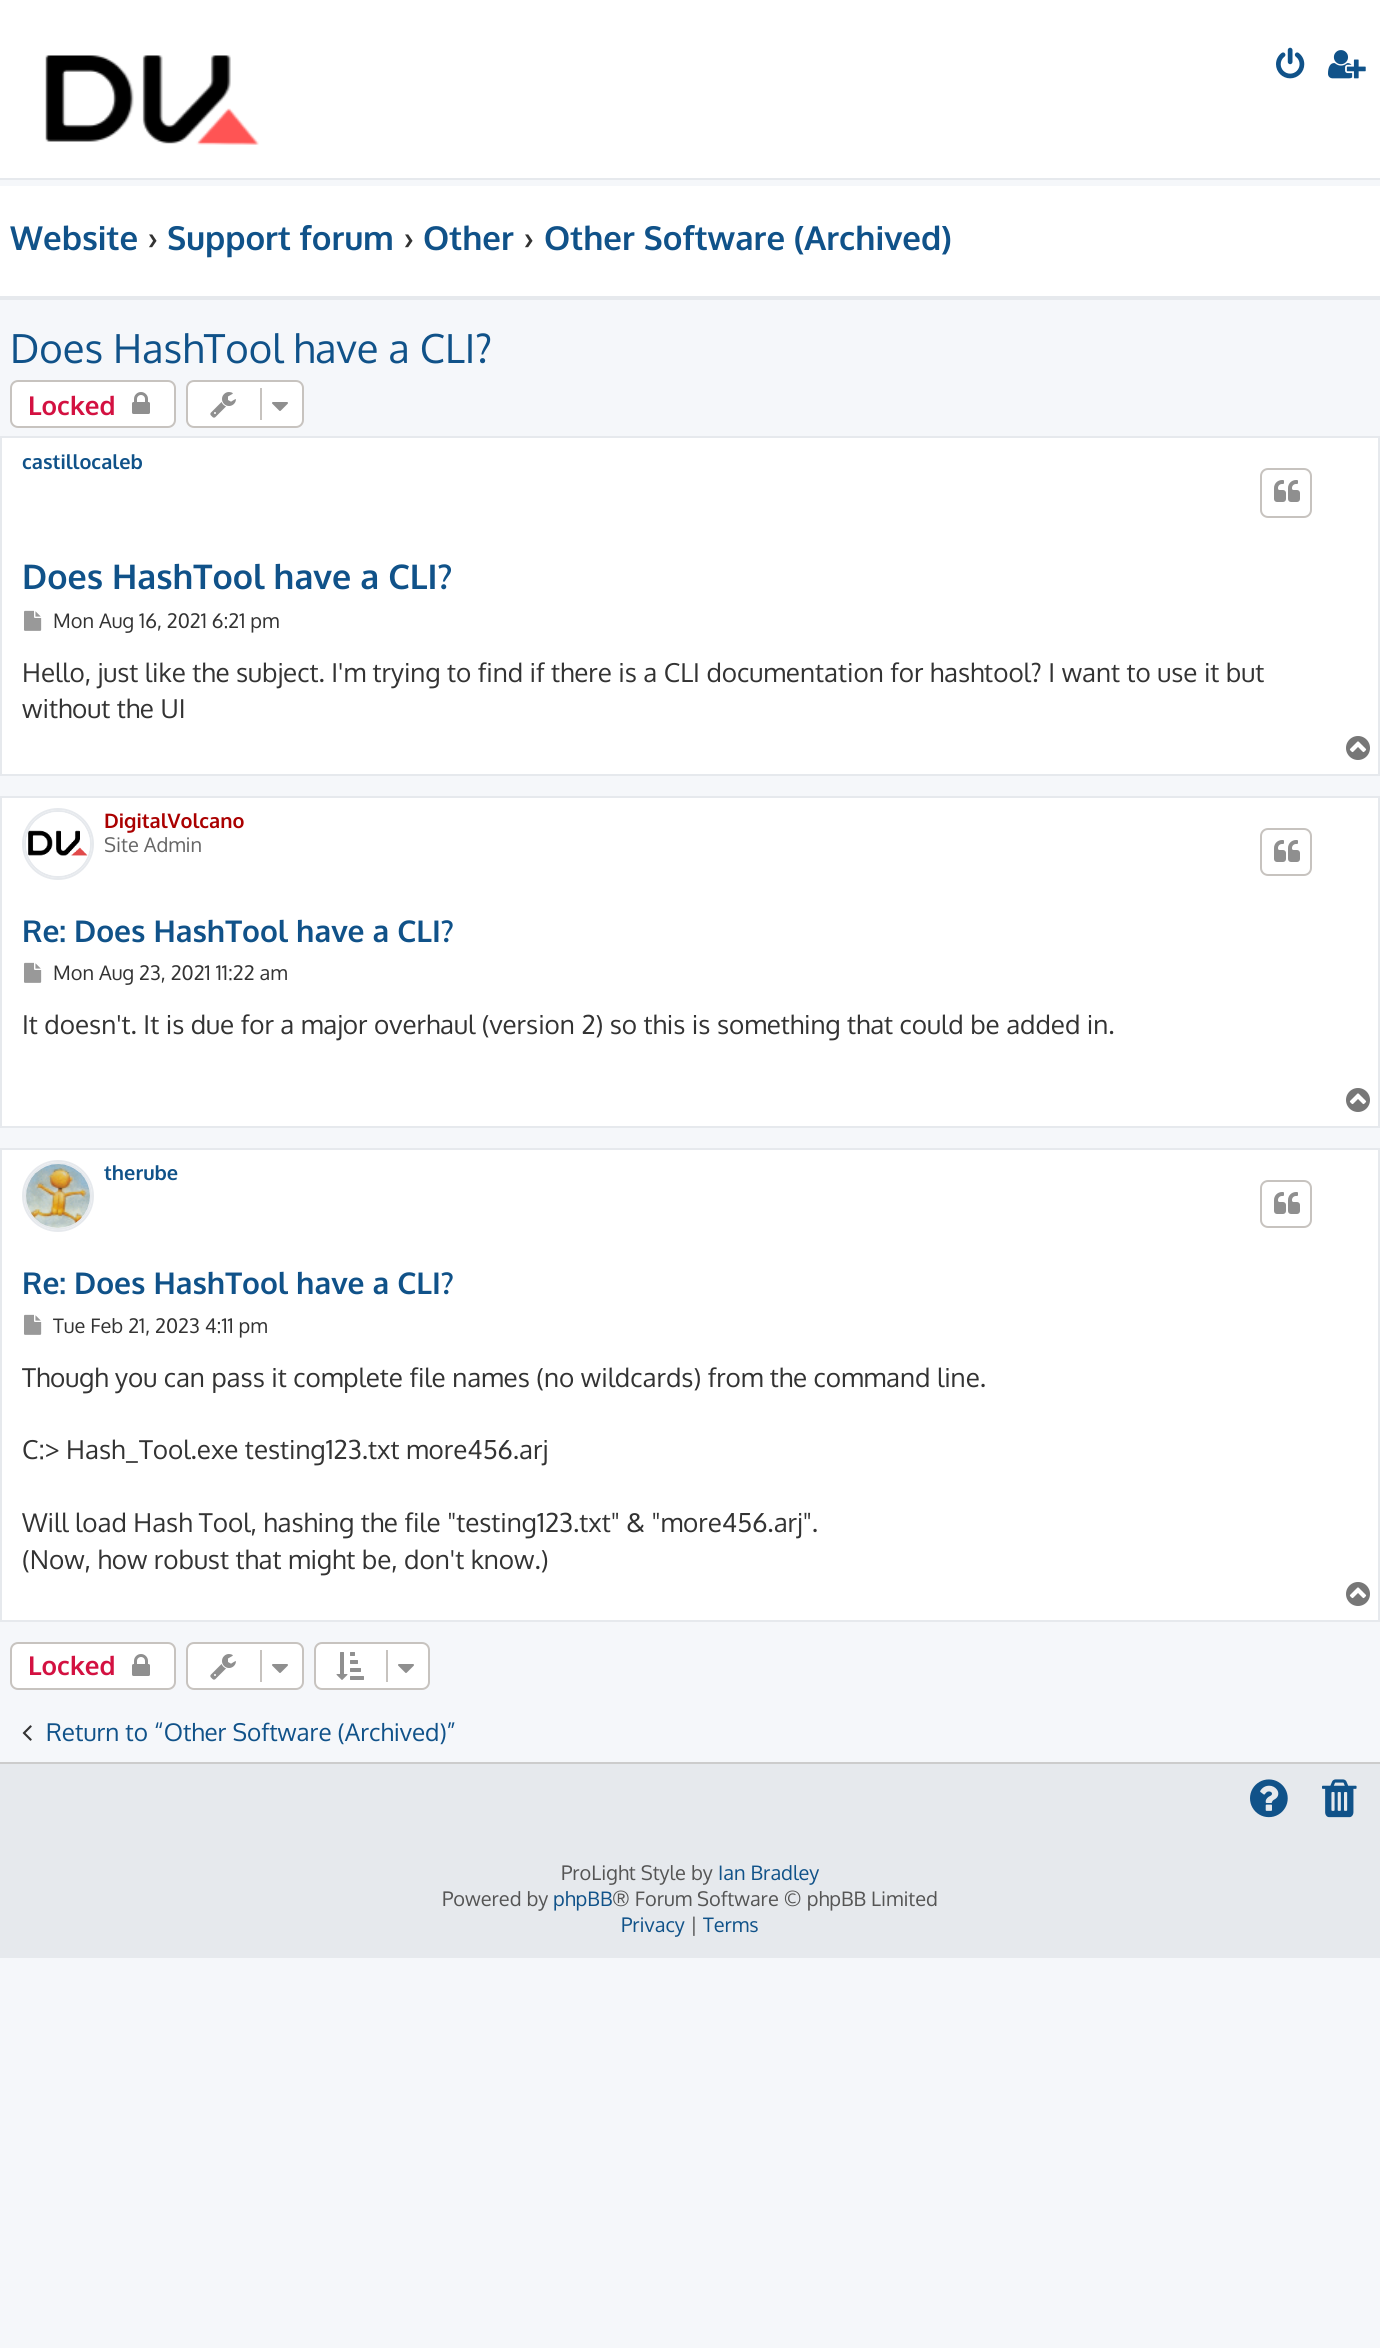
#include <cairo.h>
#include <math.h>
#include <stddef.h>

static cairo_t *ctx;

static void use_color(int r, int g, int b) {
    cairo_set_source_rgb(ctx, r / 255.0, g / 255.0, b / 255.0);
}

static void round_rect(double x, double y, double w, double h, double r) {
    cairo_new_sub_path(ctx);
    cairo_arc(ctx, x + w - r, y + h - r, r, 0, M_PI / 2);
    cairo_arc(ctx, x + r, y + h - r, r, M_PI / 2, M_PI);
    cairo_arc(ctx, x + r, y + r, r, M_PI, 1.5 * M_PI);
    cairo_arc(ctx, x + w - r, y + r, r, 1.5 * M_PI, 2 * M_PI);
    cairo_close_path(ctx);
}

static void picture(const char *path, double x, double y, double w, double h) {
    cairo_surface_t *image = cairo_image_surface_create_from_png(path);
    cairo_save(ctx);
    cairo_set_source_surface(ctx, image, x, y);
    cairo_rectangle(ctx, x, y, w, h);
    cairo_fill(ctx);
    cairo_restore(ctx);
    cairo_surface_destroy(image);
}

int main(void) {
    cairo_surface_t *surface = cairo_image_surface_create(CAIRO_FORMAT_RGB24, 1380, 2348);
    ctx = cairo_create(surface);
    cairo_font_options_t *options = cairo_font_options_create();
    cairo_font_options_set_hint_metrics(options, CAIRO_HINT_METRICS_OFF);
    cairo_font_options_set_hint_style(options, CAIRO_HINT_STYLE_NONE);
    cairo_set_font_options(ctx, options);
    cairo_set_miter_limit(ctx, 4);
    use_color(245, 247, 250);
    cairo_paint(ctx);
    use_color(255, 255, 255);
    cairo_rectangle(ctx, 0, 0, 1380, 178);
    cairo_fill(ctx);
    use_color(230, 233, 237);
    cairo_rectangle(ctx, 0, 178, 1380, 2);
    cairo_fill(ctx);
    picture("img1.png", 45, 55, 214, 90);
    picture("img2.png", 1276, 47, 29, 32);
    picture("img3.png", 1328, 50, 38, 29);
    use_color(255, 255, 255);
    cairo_rectangle(ctx, 0, 186, 1380, 110);
    cairo_fill(ctx);
    use_color(230, 233, 237);
    cairo_rectangle(ctx, 0, 296, 1380, 4);
    cairo_fill(ctx);
    cairo_select_font_face(ctx, "Oxygen", CAIRO_FONT_SLANT_NORMAL, CAIRO_FONT_WEIGHT_BOLD);
    cairo_set_font_size(ctx, 33);
    use_color(16, 82, 137);
    cairo_move_to(ctx, 10, 250);
    cairo_show_text(ctx, "Website");
    use_color(51, 51, 51);
    cairo_move_to(ctx, 148, 250);
    cairo_show_text(ctx, "›");
    use_color(16, 82, 137);
    cairo_move_to(ctx, 167, 250);
    cairo_show_text(ctx, "Support forum");
    use_color(51, 51, 51);
    cairo_move_to(ctx, 404, 250);
    cairo_show_text(ctx, "›");
    use_color(16, 82, 137);
    cairo_move_to(ctx, 423, 250);
    cairo_show_text(ctx, "Other");
    use_color(51, 51, 51);
    cairo_move_to(ctx, 524, 250);
    cairo_show_text(ctx, "›");
    use_color(16, 82, 137);
    cairo_move_to(ctx, 544, 250);
    cairo_show_text(ctx, "Other Software (Archived)");
    cairo_select_font_face(ctx, "Oxygen", CAIRO_FONT_SLANT_NORMAL, CAIRO_FONT_WEIGHT_NORMAL);
    cairo_set_font_size(ctx, 40);
    cairo_move_to(ctx, 10, 363);
    cairo_show_text(ctx, "Does HashTool have a CLI?");
    use_color(255, 255, 255);
    round_rect(11, 381, 164, 46, 7);
    cairo_fill_preserve(ctx);
    use_color(199, 195, 191);
    cairo_stroke(ctx);
    cairo_select_font_face(ctx, "Oxygen", CAIRO_FONT_SLANT_NORMAL, CAIRO_FONT_WEIGHT_BOLD);
    cairo_set_font_size(ctx, 26);
    use_color(211, 17, 65);
    cairo_move_to(ctx, 28, 415);
    cairo_show_text(ctx, "Locked");
    picture("img4.png", 132, 392, 18, 22);
    use_color(255, 255, 255);
    round_rect(187, 381, 116, 46, 7);
    cairo_fill_preserve(ctx);
    use_color(199, 195, 191);
    cairo_stroke(ctx);
    picture("img5.png", 210, 392, 26, 26);
    cairo_rectangle(ctx, 260, 388, 2, 32);
    cairo_fill(ctx);
    picture("img6.png", 272, 402, 16, 9);
    use_color(255, 255, 255);
    cairo_rectangle(ctx, 1, 437, 1378, 338);
    cairo_fill_preserve(ctx);
    use_color(230, 233, 237);
    cairo_stroke(ctx);
    cairo_set_font_size(ctx, 20);
    use_color(16, 82, 137);
    cairo_move_to(ctx, 22, 469);
    cairo_show_text(ctx, "castillocaleb");
    round_rect(1261, 469, 50, 48, 7);
    use_color(199, 195, 191);
    cairo_stroke(ctx);
    picture("img7.png", 1274, 480, 26, 22);
    cairo_set_font_size(ctx, 34);
    use_color(16, 82, 137);
    cairo_move_to(ctx, 22, 589);
    cairo_show_text(ctx, "Does HashTool have a CLI?");
    picture("img8.png", 24, 610, 18, 21);
    cairo_select_font_face(ctx, "Oxygen", CAIRO_FONT_SLANT_NORMAL, CAIRO_FONT_WEIGHT_NORMAL);
    cairo_set_font_size(ctx, 20);
    use_color(51, 51, 51);
    cairo_move_to(ctx, 53, 628);
    cairo_show_text(ctx, "Mon Aug 16, 2021 6:21 pm");
    cairo_set_font_size(ctx, 26);
    cairo_move_to(ctx, 22, 682);
    cairo_show_text(ctx, "Hello, just like the subject. I'm trying to find if there is a CLI documentation for hashtool? I want to use it but");
    cairo_move_to(ctx, 22, 718);
    cairo_show_text(ctx, "without the UI");
    picture("img9.png", 1346, 736, 24, 24);
    use_color(255, 255, 255);
    cairo_rectangle(ctx, 1, 797, 1378, 330);
    cairo_fill_preserve(ctx);
    use_color(230, 233, 237);
    cairo_stroke(ctx);
    cairo_arc(ctx, 58, 844, 35, 0, 2 * M_PI);
    cairo_stroke(ctx);
    cairo_arc(ctx, 58, 844, 33, 0, 2 * M_PI);
    cairo_stroke(ctx);
    picture("img10.png", 26, 812, 64, 64);
    cairo_select_font_face(ctx, "Oxygen", CAIRO_FONT_SLANT_NORMAL, CAIRO_FONT_WEIGHT_BOLD);
    cairo_set_font_size(ctx, 20);
    use_color(170, 0, 0);
    cairo_move_to(ctx, 104, 828);
    cairo_show_text(ctx, "DigitalVolcano");
    cairo_select_font_face(ctx, "Oxygen", CAIRO_FONT_SLANT_NORMAL, CAIRO_FONT_WEIGHT_NORMAL);
    use_color(102, 102, 102);
    cairo_move_to(ctx, 104, 852);
    cairo_show_text(ctx, "Site Admin");
    round_rect(1261, 829, 50, 46, 7);
    use_color(199, 195, 191);
    cairo_stroke(ctx);
    picture("img7.png", 1274, 840, 26, 22);
    cairo_select_font_face(ctx, "Oxygen", CAIRO_FONT_SLANT_NORMAL, CAIRO_FONT_WEIGHT_BOLD);
    cairo_set_font_size(ctx, 30);
    use_color(16, 82, 137);
    cairo_move_to(ctx, 22, 942);
    cairo_show_text(ctx, "Re: Does HashTool have a CLI?");
    picture("img8.png", 24, 962, 18, 21);
    cairo_select_font_face(ctx, "Oxygen", CAIRO_FONT_SLANT_NORMAL, CAIRO_FONT_WEIGHT_NORMAL);
    cairo_set_font_size(ctx, 20);
    use_color(51, 51, 51);
    cairo_move_to(ctx, 53, 980);
    cairo_show_text(ctx, "Mon Aug 23, 2021 11:22 am");
    cairo_set_font_size(ctx, 26);
    cairo_move_to(ctx, 22, 1034);
    cairo_show_text(ctx, "It doesn't. It is due for a major overhaul (version 2) so this is something that could be added in.");
    picture("img9.png", 1346, 1088, 24, 24);
    use_color(255, 255, 255);
    cairo_rectangle(ctx, 1, 1149, 1378, 472);
    cairo_fill_preserve(ctx);
    use_color(230, 233, 237);
    cairo_stroke(ctx);
    cairo_arc(ctx, 58, 1196, 35, 0, 2 * M_PI);
    cairo_stroke(ctx);
    cairo_arc(ctx, 58, 1196, 33, 0, 2 * M_PI);
    cairo_stroke(ctx);
    picture("img11.png", 26, 1164, 64, 64);
    cairo_select_font_face(ctx, "Oxygen", CAIRO_FONT_SLANT_NORMAL, CAIRO_FONT_WEIGHT_BOLD);
    cairo_set_font_size(ctx, 20);
    use_color(16, 82, 137);
    cairo_move_to(ctx, 104, 1180);
    cairo_show_text(ctx, "therube");
    round_rect(1261, 1181, 50, 46, 7);
    use_color(199, 195, 191);
    cairo_stroke(ctx);
    picture("img7.png", 1274, 1192, 26, 22);
    cairo_set_font_size(ctx, 30);
    use_color(16, 82, 137);
    cairo_move_to(ctx, 22, 1294);
    cairo_show_text(ctx, "Re: Does HashTool have a CLI?");
    picture("img8.png", 24, 1314, 18, 21);
    cairo_select_font_face(ctx, "Oxygen", CAIRO_FONT_SLANT_NORMAL, CAIRO_FONT_WEIGHT_NORMAL);
    cairo_set_font_size(ctx, 20);
    use_color(51, 51, 51);
    cairo_move_to(ctx, 53, 1333);
    cairo_show_text(ctx, "Tue Feb 21, 2023 4:11 pm");
    cairo_set_font_size(ctx, 26);
    cairo_move_to(ctx, 22, 1387);
    cairo_show_text(ctx, "Though you can pass it complete file names (no wildcards) from the command line.");
    cairo_move_to(ctx, 22, 1459);
    cairo_show_text(ctx, "C:> Hash_Tool.exe testing123.txt more456.arj");
    cairo_move_to(ctx, 22, 1532);
    cairo_show_text(ctx, "Will load Hash Tool, hashing the file \"testing123.txt\" & \"more456.arj\".");
    cairo_move_to(ctx, 22, 1569);
    cairo_show_text(ctx, "(Now, how robust that might be, don't know.)");
    picture("img9.png", 1346, 1582, 24, 24);
    use_color(255, 255, 255);
    round_rect(11, 1643, 164, 46, 7);
    cairo_fill_preserve(ctx);
    use_color(199, 195, 191);
    cairo_stroke(ctx);
    cairo_select_font_face(ctx, "Oxygen", CAIRO_FONT_SLANT_NORMAL, CAIRO_FONT_WEIGHT_BOLD);
    use_color(211, 17, 65);
    cairo_move_to(ctx, 28, 1675);
    cairo_show_text(ctx, "Locked");
    picture("img4.png", 132, 1654, 18, 22);
    use_color(255, 255, 255);
    round_rect(187, 1643, 116, 46, 7);
    cairo_fill_preserve(ctx);
    use_color(199, 195, 191);
    cairo_stroke(ctx);
    picture("img5.png", 210, 1654, 26, 26);
    cairo_rectangle(ctx, 260, 1650, 2, 32);
    cairo_fill(ctx);
    picture("img6.png", 272, 1664, 16, 9);
    use_color(255, 255, 255);
    round_rect(315, 1643, 114, 46, 7);
    cairo_fill_preserve(ctx);
    use_color(199, 195, 191);
    cairo_stroke(ctx);
    picture("img12.png", 336, 1652, 28, 28);
    cairo_rectangle(ctx, 386, 1650, 2, 32);
    cairo_fill(ctx);
    picture("img6.png", 398, 1664, 16, 9);
    picture("img13.png", 22, 1725, 10, 16);
    cairo_select_font_face(ctx, "Oxygen", CAIRO_FONT_SLANT_NORMAL, CAIRO_FONT_WEIGHT_NORMAL);
    cairo_set_font_size(ctx, 24.25);
    use_color(16, 82, 137);
    cairo_move_to(ctx, 46, 1741);
    cairo_show_text(ctx, "Return to “Other Software (Archived)”");
    use_color(230, 233, 237);
    cairo_rectangle(ctx, 0, 1764, 1380, 194);
    cairo_fill(ctx);
    use_color(204, 204, 204);
    cairo_rectangle(ctx, 0, 1762, 1380, 2);
    cairo_fill(ctx);
    picture("img14.png", 1250, 1779, 38, 39);
    picture("img15.png", 1322, 1779, 35, 39);
    cairo_set_font_size(ctx, 20);
    use_color(85, 85, 85);
    cairo_move_to(ctx, 561, 1880);
    cairo_show_text(ctx, "ProLight Style by");
    use_color(16, 82, 137);
    cairo_move_to(ctx, 718, 1880);
    cairo_show_text(ctx, "Ian Bradley");
    use_color(85, 85, 85);
    cairo_move_to(ctx, 442, 1906);
    cairo_show_text(ctx, "Powered by");
    use_color(16, 82, 137);
    cairo_move_to(ctx, 553, 1906);
    cairo_show_text(ctx, "phpBB");
    use_color(85, 85, 85);
    cairo_move_to(ctx, 612, 1906);
    cairo_show_text(ctx, "® Forum Software © phpBB Limited");
    use_color(16, 82, 137);
    cairo_move_to(ctx, 621, 1932);
    cairo_show_text(ctx, "Privacy");
    use_color(85, 85, 85);
    cairo_move_to(ctx, 690, 1932);
    cairo_show_text(ctx, "|");
    use_color(16, 82, 137);
    cairo_move_to(ctx, 703, 1932);
    cairo_show_text(ctx, "Terms");
    cairo_surface_write_to_png(surface, "result.png");
    cairo_font_options_destroy(options);
    cairo_destroy(ctx);
    cairo_surface_destroy(surface);
    return 0;
}
